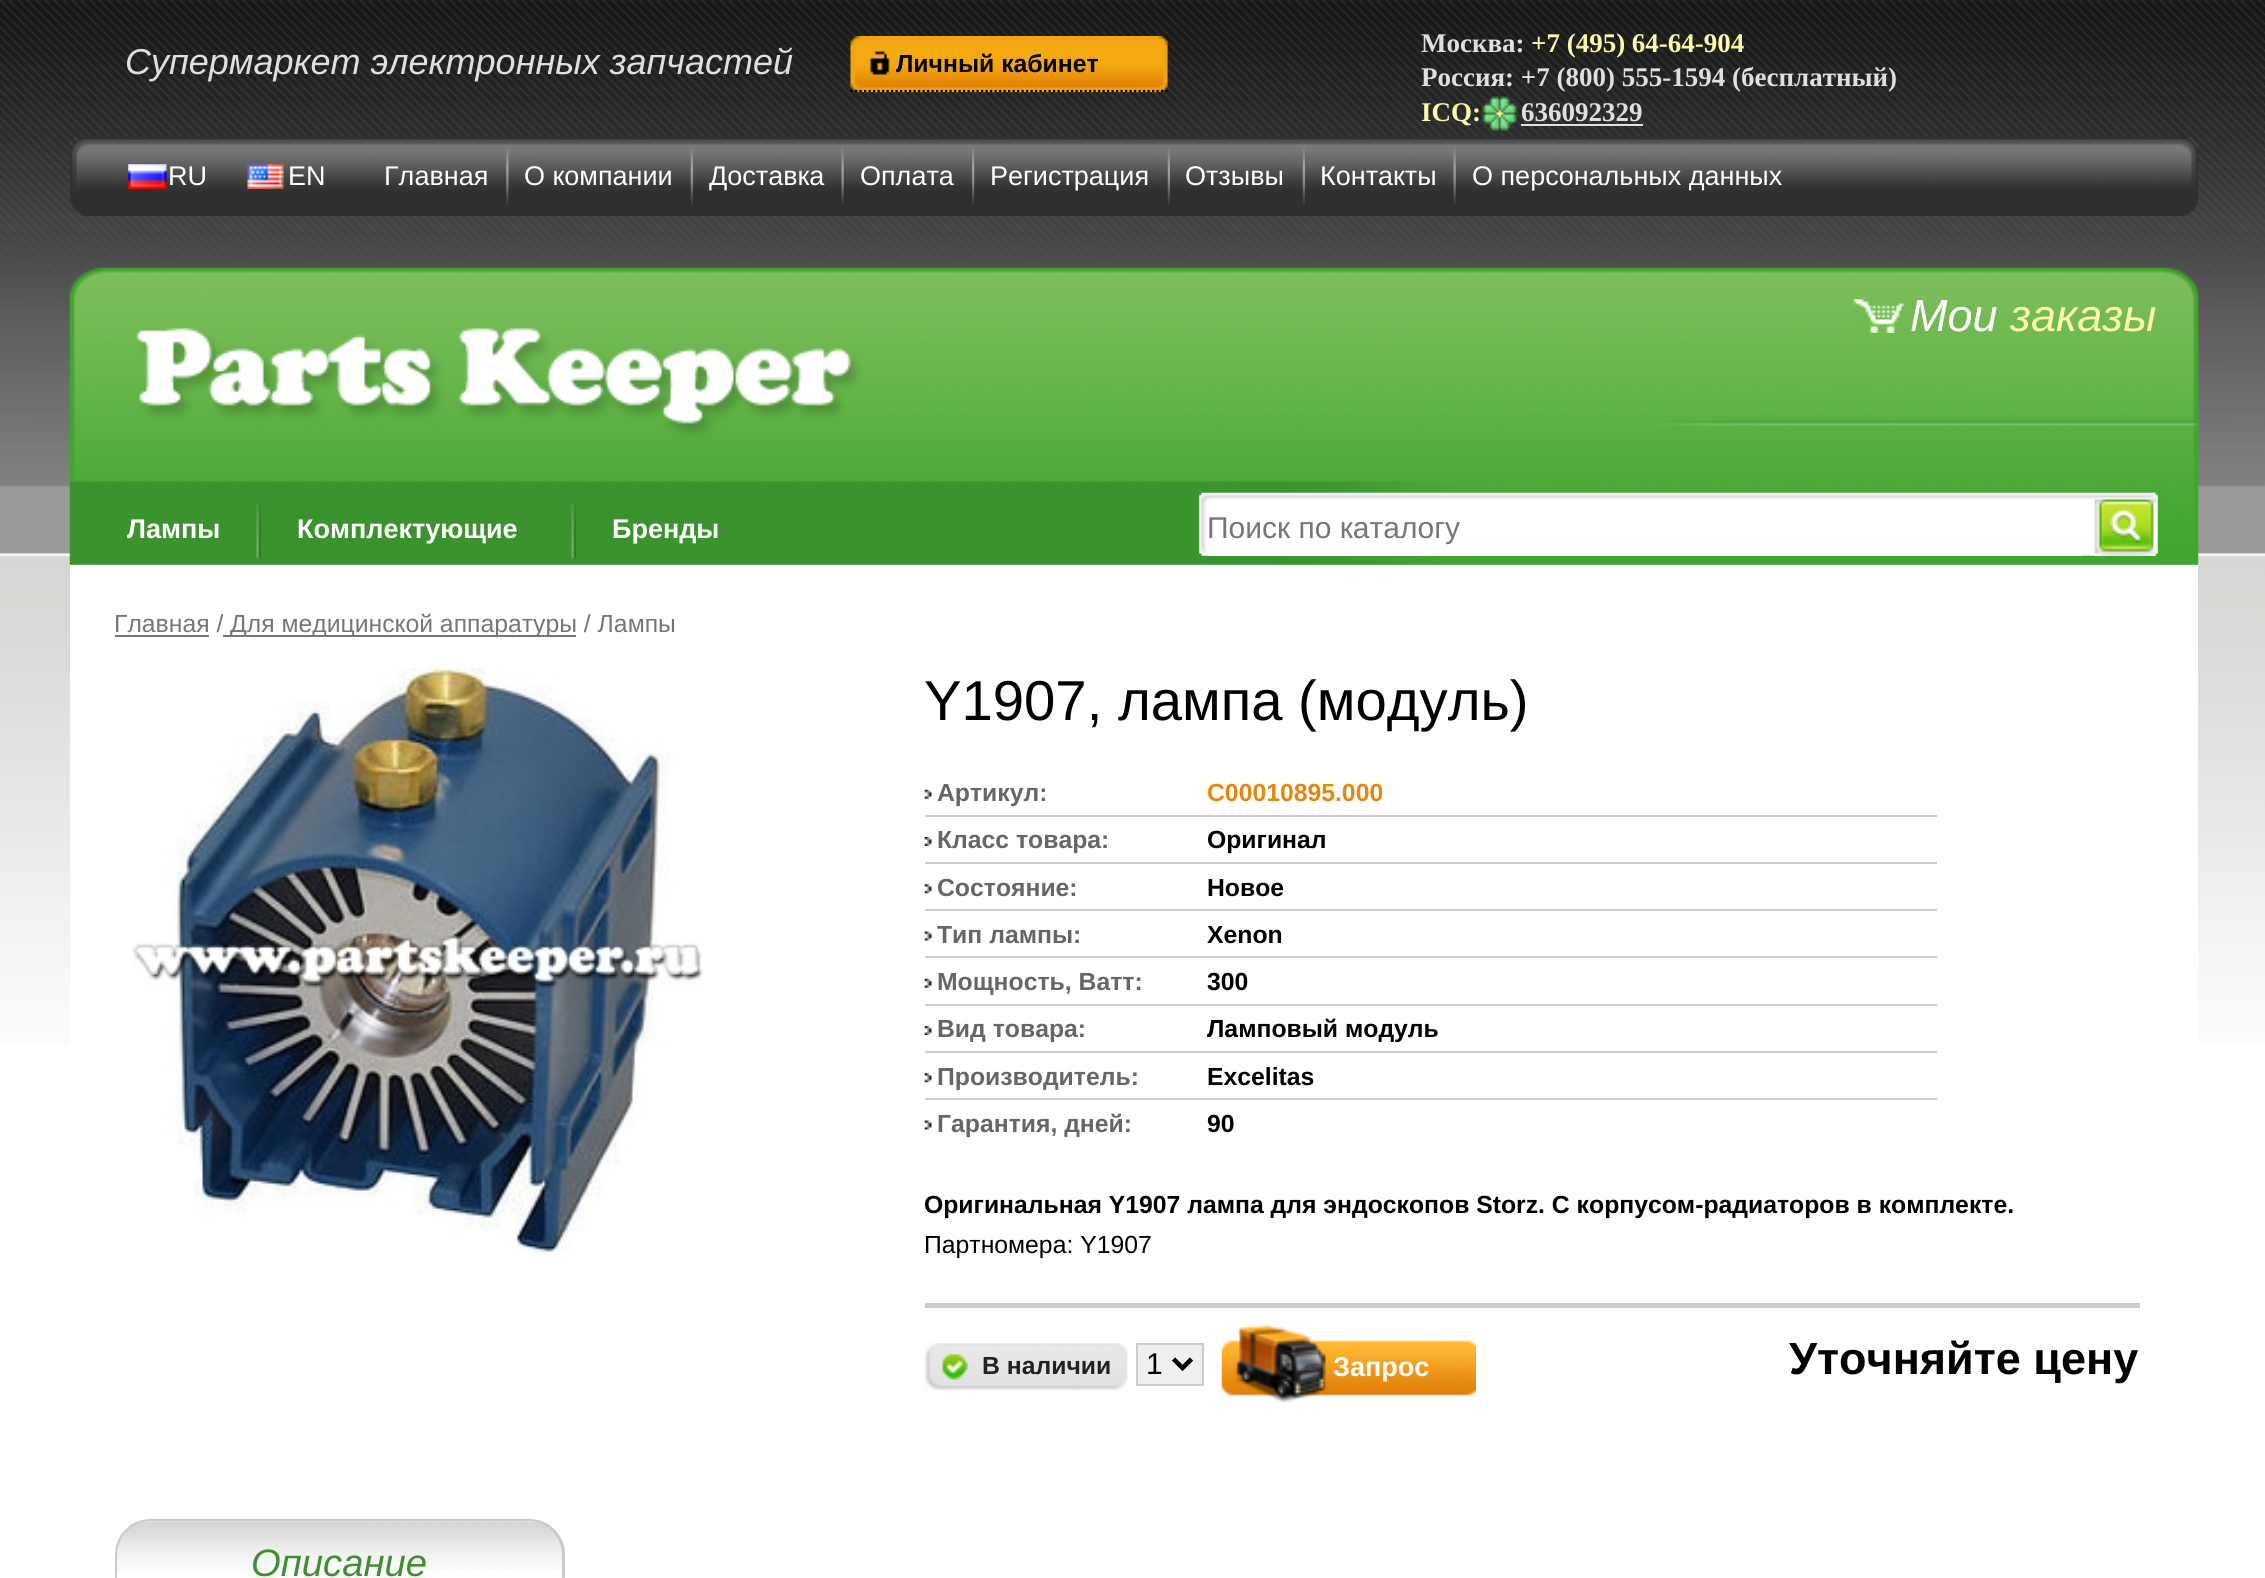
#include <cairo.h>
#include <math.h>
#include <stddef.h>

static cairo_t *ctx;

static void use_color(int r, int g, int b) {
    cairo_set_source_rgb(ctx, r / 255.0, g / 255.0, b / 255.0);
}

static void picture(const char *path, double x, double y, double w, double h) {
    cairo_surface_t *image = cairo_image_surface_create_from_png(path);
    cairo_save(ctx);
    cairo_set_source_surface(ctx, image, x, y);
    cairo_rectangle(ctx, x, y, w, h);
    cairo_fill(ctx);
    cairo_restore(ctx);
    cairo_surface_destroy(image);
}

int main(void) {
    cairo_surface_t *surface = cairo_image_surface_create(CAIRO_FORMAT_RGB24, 2265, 1578);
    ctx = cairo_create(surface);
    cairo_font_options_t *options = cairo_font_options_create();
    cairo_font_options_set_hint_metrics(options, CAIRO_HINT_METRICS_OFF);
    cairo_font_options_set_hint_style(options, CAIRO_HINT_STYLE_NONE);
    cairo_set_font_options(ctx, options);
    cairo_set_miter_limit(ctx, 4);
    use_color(255, 255, 255);
    cairo_paint(ctx);
    picture("img1.png", 0, 0, 2265, 1044);
    cairo_select_font_face(ctx, "Liberation Sans", CAIRO_FONT_SLANT_ITALIC, CAIRO_FONT_WEIGHT_NORMAL);
    cairo_set_font_size(ctx, 36);
    use_color(223, 223, 223);
    cairo_move_to(ctx, 125, 74);
    cairo_show_text(ctx, "Супермаркет электронных запчастей");
    picture("img2.png", 850, 36, 318, 57);
    cairo_save(ctx);
    cairo_rectangle(ctx, 792, 36, 376, 56);
    cairo_clip(ctx);
    cairo_new_path(ctx);
    cairo_move_to(ctx, 850.5, 91);
    cairo_line_to(ctx, 1168, 91);
    use_color(0, 0, 0);
    cairo_set_line_width(ctx, 2.2);
    cairo_set_dash(ctx, (double[]){2.25, 2.25}, 2, 0);
    cairo_stroke(ctx);
    cairo_restore(ctx);
    cairo_select_font_face(ctx, "Liberation Sans", CAIRO_FONT_SLANT_NORMAL, CAIRO_FONT_WEIGHT_BOLD);
    cairo_set_font_size(ctx, 24.75);
    use_color(0, 0, 0);
    cairo_move_to(ctx, 896, 72);
    cairo_show_text(ctx, "Личный кабинет");
    cairo_select_font_face(ctx, "Liberation Serif", CAIRO_FONT_SLANT_NORMAL, CAIRO_FONT_WEIGHT_BOLD);
    cairo_set_font_size(ctx, 27);
    use_color(223, 223, 223);
    cairo_move_to(ctx, 1421, 52);
    cairo_show_text(ctx, "Москва:");
    use_color(253, 249, 171);
    cairo_move_to(ctx, 1531, 52);
    cairo_show_text(ctx, "+7 (495) 64-64-904");
    use_color(223, 223, 223);
    cairo_move_to(ctx, 1421, 86);
    cairo_show_text(ctx, "Россия: +7 (800) 555-1594 (бесплатный)");
    use_color(253, 249, 171);
    cairo_move_to(ctx, 1421, 121);
    cairo_show_text(ctx, "ICQ:");
    picture("img3.png", 1482, 96, 36, 36);
    use_color(223, 223, 223);
    cairo_move_to(ctx, 1521, 121);
    cairo_show_text(ctx, "636092329");
    cairo_rectangle(ctx, 1521, 124, 122, 2);
    cairo_fill(ctx);
    picture("img4.png", 70, 137, 2128, 79);
    picture("img5.png", 128, 164, 39, 25);
    cairo_select_font_face(ctx, "Liberation Sans", CAIRO_FONT_SLANT_NORMAL, CAIRO_FONT_WEIGHT_NORMAL);
    use_color(255, 255, 255);
    cairo_move_to(ctx, 168, 185);
    cairo_show_text(ctx, "RU");
    picture("img6.png", 247, 164, 37, 25);
    cairo_move_to(ctx, 288, 185);
    cairo_show_text(ctx, "EN");
    cairo_move_to(ctx, 384, 185);
    cairo_show_text(ctx, "Главная");
    picture("img7.png", 506, 148, 3, 57);
    cairo_move_to(ctx, 524, 185);
    cairo_show_text(ctx, "О компании");
    picture("img8.png", 690, 148, 3, 57);
    cairo_move_to(ctx, 709, 185);
    cairo_show_text(ctx, "Доставка");
    picture("img9.png", 841, 148, 3, 57);
    cairo_move_to(ctx, 860, 185);
    cairo_show_text(ctx, "Оплата");
    picture("img10.png", 972, 148, 3, 57);
    cairo_move_to(ctx, 990, 185);
    cairo_show_text(ctx, "Регистрация");
    picture("img11.png", 1167, 148, 3, 57);
    cairo_move_to(ctx, 1185, 185);
    cairo_show_text(ctx, "Отзывы");
    picture("img12.png", 1302, 148, 3, 57);
    cairo_move_to(ctx, 1320, 185);
    cairo_show_text(ctx, "Контакты");
    picture("img13.png", 1453, 148, 3, 57);
    cairo_move_to(ctx, 1472, 185);
    cairo_show_text(ctx, "О персональных данных");
    picture("img14.png", 69, 267, 2130, 298);
    picture("img15.png", 1852, 299, 52, 34);
    cairo_select_font_face(ctx, "Liberation Sans", CAIRO_FONT_SLANT_ITALIC, CAIRO_FONT_WEIGHT_NORMAL);
    cairo_set_font_size(ctx, 45);
    cairo_move_to(ctx, 1910, 331);
    cairo_show_text(ctx, "Мои");
    use_color(253, 249, 171);
    cairo_move_to(ctx, 2010, 331);
    cairo_show_text(ctx, "заказы");
    cairo_select_font_face(ctx, "Liberation Sans", CAIRO_FONT_SLANT_NORMAL, CAIRO_FONT_WEIGHT_BOLD);
    cairo_set_font_size(ctx, 27);
    use_color(255, 255, 255);
    cairo_move_to(ctx, 127, 538);
    cairo_show_text(ctx, "Лампы");
    picture("img16.png", 256, 502, 5, 57);
    cairo_move_to(ctx, 297, 538);
    cairo_show_text(ctx, "Комплектующие");
    picture("img16.png", 571, 502, 5, 57);
    cairo_move_to(ctx, 612, 538);
    cairo_show_text(ctx, "Бренды");
    picture("img17.png", 1199, 492, 959, 64);
    cairo_rectangle(ctx, 1208, 552, 873, 4);
    cairo_fill(ctx);
    cairo_select_font_face(ctx, "Liberation Sans", CAIRO_FONT_SLANT_NORMAL, CAIRO_FONT_WEIGHT_NORMAL);
    cairo_set_font_size(ctx, 30);
    use_color(118, 118, 117);
    cairo_move_to(ctx, 1207, 538);
    cairo_show_text(ctx, "Поиск по каталогу");
    picture("img18.png", 2094, 499, 62, 57);
    use_color(255, 255, 255);
    cairo_rectangle(ctx, 70, 565, 2128, 479);
    cairo_fill(ctx);
    cairo_set_font_size(ctx, 24.75);
    use_color(118, 118, 117);
    cairo_move_to(ctx, 114, 632);
    cairo_show_text(ctx, "Главная /");
    cairo_rectangle(ctx, 115, 635, 94, 2);
    cairo_fill(ctx);
    cairo_rectangle(ctx, 223, 635, 353, 2);
    cairo_fill(ctx);
    cairo_move_to(ctx, 230, 632);
    cairo_show_text(ctx, "Для медицинской аппаратуры / Лампы");
    picture("img19.png", 132, 668, 571, 586);
    cairo_set_font_size(ctx, 56.25);
    use_color(0, 0, 0);
    cairo_move_to(ctx, 924, 720);
    cairo_show_text(ctx, "Y1907, лампа (модуль)");
    use_color(204, 204, 204);
    cairo_rectangle(ctx, 925, 815, 1012, 2);
    cairo_fill(ctx);
    picture("img20.png", 924, 789, 8, 10);
    cairo_select_font_face(ctx, "Liberation Sans", CAIRO_FONT_SLANT_NORMAL, CAIRO_FONT_WEIGHT_BOLD);
    cairo_set_font_size(ctx, 24.75);
    use_color(102, 102, 102);
    cairo_move_to(ctx, 937, 801);
    cairo_show_text(ctx, "Артикул:");
    use_color(229, 135, 14);
    cairo_move_to(ctx, 1207, 801);
    cairo_show_text(ctx, "C00010895.000");
    use_color(204, 204, 204);
    cairo_rectangle(ctx, 925, 862, 1012, 2);
    cairo_fill(ctx);
    picture("img21.png", 924, 837, 8, 9);
    use_color(102, 102, 102);
    cairo_move_to(ctx, 937, 848);
    cairo_show_text(ctx, "Класс товара:");
    use_color(0, 0, 0);
    cairo_move_to(ctx, 1207, 848);
    cairo_show_text(ctx, "Оригинал");
    use_color(204, 204, 204);
    cairo_rectangle(ctx, 925, 909, 1012, 2);
    cairo_fill(ctx);
    picture("img22.png", 924, 884, 8, 10);
    use_color(102, 102, 102);
    cairo_move_to(ctx, 937, 896);
    cairo_show_text(ctx, "Состояние:");
    use_color(0, 0, 0);
    cairo_move_to(ctx, 1207, 896);
    cairo_show_text(ctx, "Новое");
    use_color(204, 204, 204);
    cairo_rectangle(ctx, 925, 956, 1012, 2);
    cairo_fill(ctx);
    picture("img23.png", 924, 931, 8, 10);
    use_color(102, 102, 102);
    cairo_move_to(ctx, 937, 943);
    cairo_show_text(ctx, "Тип лампы:");
    use_color(0, 0, 0);
    cairo_move_to(ctx, 1207, 943);
    cairo_show_text(ctx, "Xenon");
    use_color(204, 204, 204);
    cairo_rectangle(ctx, 925, 1004, 1012, 2);
    cairo_fill(ctx);
    picture("img20.png", 924, 978, 8, 10);
    use_color(102, 102, 102);
    cairo_move_to(ctx, 937, 990);
    cairo_show_text(ctx, "Мощность, Ватт:");
    use_color(0, 0, 0);
    cairo_move_to(ctx, 1207, 990);
    cairo_show_text(ctx, "300");
    use_color(204, 204, 204);
    cairo_rectangle(ctx, 925, 1051, 1012, 2);
    cairo_fill(ctx);
    picture("img21.png", 924, 1026, 8, 9);
    use_color(102, 102, 102);
    cairo_move_to(ctx, 937, 1037);
    cairo_show_text(ctx, "Вид товара:");
    use_color(0, 0, 0);
    cairo_move_to(ctx, 1207, 1037);
    cairo_show_text(ctx, "Ламповый модуль");
    use_color(204, 204, 204);
    cairo_rectangle(ctx, 925, 1098, 1012, 2);
    cairo_fill(ctx);
    picture("img22.png", 924, 1073, 8, 10);
    use_color(102, 102, 102);
    cairo_move_to(ctx, 937, 1085);
    cairo_show_text(ctx, "Производитель:");
    use_color(0, 0, 0);
    cairo_move_to(ctx, 1207, 1085);
    cairo_show_text(ctx, "Excelitas");
    picture("img23.png", 924, 1120, 8, 10);
    use_color(102, 102, 102);
    cairo_move_to(ctx, 937, 1132);
    cairo_show_text(ctx, "Гарантия, дней:");
    use_color(0, 0, 0);
    cairo_move_to(ctx, 1207, 1132);
    cairo_show_text(ctx, "90");
    cairo_move_to(ctx, 924, 1213);
    cairo_show_text(ctx, "Оригинальная Y1907 лампа для эндоскопов Storz. С корпусом-радиаторов в комплекте.");
    cairo_select_font_face(ctx, "Liberation Sans", CAIRO_FONT_SLANT_NORMAL, CAIRO_FONT_WEIGHT_NORMAL);
    cairo_move_to(ctx, 924, 1253);
    cairo_show_text(ctx, "Партномера: Y1907");
    use_color(204, 204, 204);
    cairo_rectangle(ctx, 925, 1303, 1215, 5);
    cairo_fill(ctx);
    picture("img24.png", 924, 1343, 204, 48);
    cairo_select_font_face(ctx, "Liberation Sans", CAIRO_FONT_SLANT_NORMAL, CAIRO_FONT_WEIGHT_BOLD);
    use_color(34, 34, 34);
    cairo_move_to(ctx, 982, 1374);
    cairo_show_text(ctx, "В наличии");
    use_color(239, 239, 239);
    cairo_rectangle(ctx, 1137, 1344, 66, 41);
    cairo_fill_preserve(ctx);
    use_color(204, 204, 204);
    cairo_stroke(ctx);
    cairo_new_path(ctx);
    cairo_move_to(ctx, 1173.5, 1359);
    cairo_line_to(ctx, 1182.5, 1368);
    cairo_line_to(ctx, 1191.5, 1359);
    use_color(0, 0, 0);
    cairo_set_line_width(ctx, 4.5);
    cairo_stroke(ctx);
    cairo_select_font_face(ctx, "Liberation Sans", CAIRO_FONT_SLANT_NORMAL, CAIRO_FONT_WEIGHT_NORMAL);
    cairo_set_font_size(ctx, 30);
    cairo_move_to(ctx, 1146, 1374);
    cairo_show_text(ctx, "1");
    picture("img25.png", 1221, 1325, 255, 78);
    cairo_select_font_face(ctx, "Liberation Sans", CAIRO_FONT_SLANT_NORMAL, CAIRO_FONT_WEIGHT_BOLD);
    cairo_set_font_size(ctx, 27);
    use_color(255, 255, 255);
    cairo_move_to(ctx, 1333, 1376);
    cairo_show_text(ctx, "Запрос");
    cairo_set_font_size(ctx, 45);
    use_color(0, 0, 0);
    cairo_move_to(ctx, 1789, 1374);
    cairo_show_text(ctx, "Уточняйте цену");
    picture("img26.png", 115, 1520, 450, 52);
    use_color(203, 203, 203);
    cairo_new_path(ctx);
    cairo_move_to(ctx, 151, 1519);
    cairo_curve_to(ctx, 141, 1519, 132, 1523, 126, 1530);
    cairo_line_to(ctx, 127, 1531);
    cairo_curve_to(ctx, 133, 1525, 142, 1521, 151, 1521);
    cairo_line_to(ctx, 529, 1521);
    cairo_curve_to(ctx, 538, 1521, 546, 1525, 552, 1531);
    cairo_line_to(ctx, 554, 1529);
    cairo_curve_to(ctx, 548, 1523, 539, 1519, 529, 1519);
    cairo_close_path(ctx);
    cairo_fill(ctx);
    cairo_new_path(ctx);
    cairo_move_to(ctx, 554, 1529);
    cairo_curve_to(ctx, 560, 1535, 564, 1542, 565, 1551);
    cairo_line_to(ctx, 565, 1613);
    cairo_line_to(ctx, 562, 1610);
    cairo_line_to(ctx, 562, 1555);
    cairo_curve_to(ctx, 562, 1546, 558, 1537, 552, 1531);
    cairo_close_path(ctx);
    cairo_fill(ctx);
    cairo_new_path(ctx);
    cairo_move_to(ctx, 126, 1530);
    cairo_curve_to(ctx, 119, 1536, 115, 1545, 115, 1555);
    cairo_line_to(ctx, 115, 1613);
    cairo_line_to(ctx, 117, 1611);
    cairo_line_to(ctx, 117, 1555);
    cairo_curve_to(ctx, 117, 1546, 121, 1537, 127, 1531);
    cairo_close_path(ctx);
    cairo_fill(ctx);
    cairo_select_font_face(ctx, "Liberation Sans", CAIRO_FONT_SLANT_ITALIC, CAIRO_FONT_WEIGHT_NORMAL);
    cairo_set_font_size(ctx, 38.25);
    use_color(64, 142, 49);
    cairo_move_to(ctx, 251, 1576);
    cairo_show_text(ctx, "Описание");
    cairo_surface_write_to_png(surface, "result.png");
    cairo_font_options_destroy(options);
    cairo_destroy(ctx);
    cairo_surface_destroy(surface);
    return 0;
}
